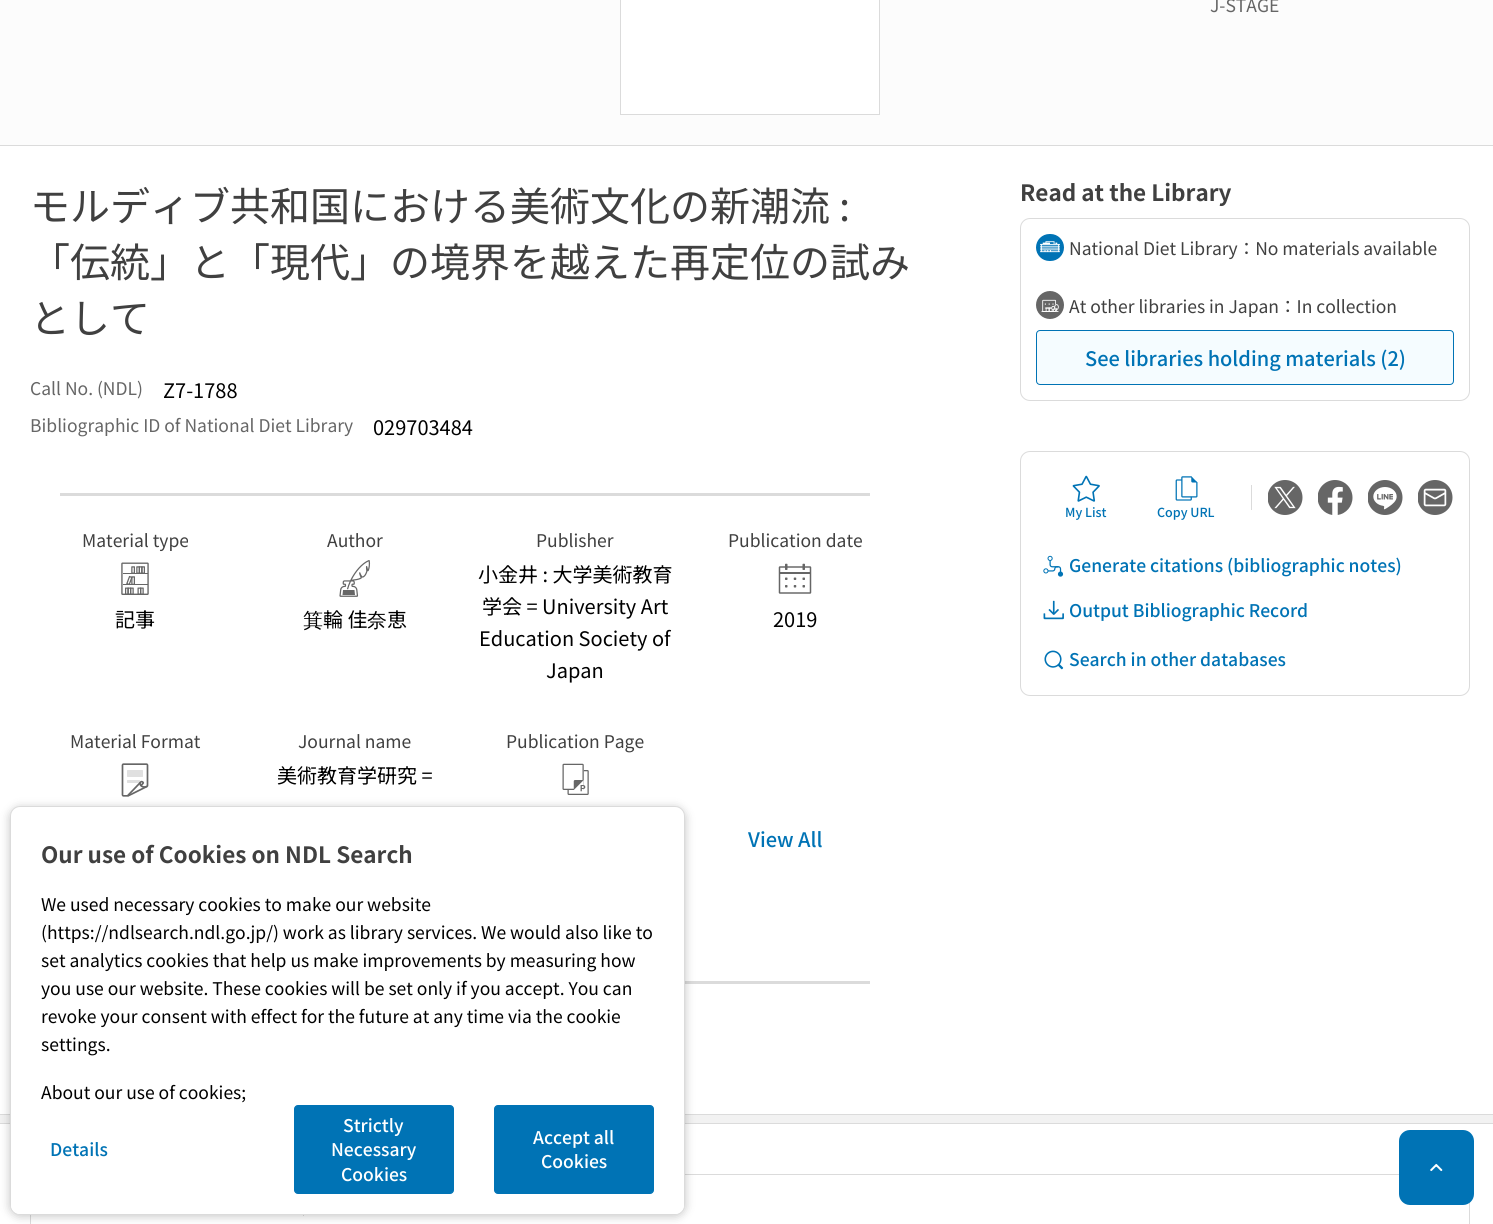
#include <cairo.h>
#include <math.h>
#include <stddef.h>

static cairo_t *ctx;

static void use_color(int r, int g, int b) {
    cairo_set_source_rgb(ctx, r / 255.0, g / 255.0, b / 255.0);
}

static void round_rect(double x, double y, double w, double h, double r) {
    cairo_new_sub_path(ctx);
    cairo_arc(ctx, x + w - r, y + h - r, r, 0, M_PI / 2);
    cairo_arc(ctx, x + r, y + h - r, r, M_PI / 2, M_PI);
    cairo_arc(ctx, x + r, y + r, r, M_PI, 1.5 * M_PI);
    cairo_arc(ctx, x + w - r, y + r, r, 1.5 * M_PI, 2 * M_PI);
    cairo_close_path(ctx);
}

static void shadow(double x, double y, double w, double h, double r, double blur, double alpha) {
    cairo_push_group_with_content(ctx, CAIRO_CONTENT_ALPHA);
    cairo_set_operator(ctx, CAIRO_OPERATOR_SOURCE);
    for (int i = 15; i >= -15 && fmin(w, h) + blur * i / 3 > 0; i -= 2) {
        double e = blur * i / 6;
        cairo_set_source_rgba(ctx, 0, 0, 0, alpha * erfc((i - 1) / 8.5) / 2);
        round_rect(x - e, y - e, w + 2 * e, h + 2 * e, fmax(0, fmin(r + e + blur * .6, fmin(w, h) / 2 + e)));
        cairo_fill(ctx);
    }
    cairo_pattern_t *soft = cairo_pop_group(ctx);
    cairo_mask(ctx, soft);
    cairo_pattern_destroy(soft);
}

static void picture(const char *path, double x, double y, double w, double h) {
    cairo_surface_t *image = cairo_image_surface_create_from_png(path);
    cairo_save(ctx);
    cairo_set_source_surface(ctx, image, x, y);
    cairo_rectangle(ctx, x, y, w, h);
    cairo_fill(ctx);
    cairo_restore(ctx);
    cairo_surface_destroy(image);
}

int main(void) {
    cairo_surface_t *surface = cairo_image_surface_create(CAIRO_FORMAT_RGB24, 1493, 1224);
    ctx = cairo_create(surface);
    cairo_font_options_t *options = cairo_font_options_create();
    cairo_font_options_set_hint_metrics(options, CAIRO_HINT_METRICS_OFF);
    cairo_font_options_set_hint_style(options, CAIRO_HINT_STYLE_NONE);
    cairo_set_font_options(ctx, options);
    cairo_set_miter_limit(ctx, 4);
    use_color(255, 255, 255);
    cairo_paint(ctx);
    use_color(252, 252, 252);
    cairo_rectangle(ctx, 0, 0, 1493, 145);
    cairo_fill(ctx);
    use_color(219, 219, 219);
    cairo_rectangle(ctx, 0, 145, 1493, 1);
    cairo_fill(ctx);
    use_color(255, 255, 255);
    cairo_rectangle(ctx, 620.5, -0.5, 259, 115);
    cairo_fill_preserve(ctx);
    use_color(219, 219, 219);
    cairo_set_line_width(ctx, 1);
    cairo_stroke(ctx);
    cairo_select_font_face(ctx, "Noto Sans JP", CAIRO_FONT_SLANT_NORMAL, CAIRO_FONT_WEIGHT_NORMAL);
    cairo_set_font_size(ctx, 17.5);
    use_color(102, 102, 102);
    cairo_move_to(ctx, 1210, 12);
    cairo_show_text(ctx, "J-STAGE");
    cairo_set_font_size(ctx, 40);
    use_color(64, 64, 64);
    cairo_move_to(ctx, 30, 221);
    cairo_show_text(ctx, "モルディブ共和国における美術文化の新潮流 :");
    cairo_move_to(ctx, 30, 277);
    cairo_show_text(ctx, "「伝統」と「現代」の境界を越えた再定位の試み");
    cairo_move_to(ctx, 30, 333);
    cairo_show_text(ctx, "として");
    cairo_set_font_size(ctx, 17.5);
    use_color(102, 102, 102);
    cairo_move_to(ctx, 30, 395);
    cairo_show_text(ctx, "Call No. (NDL)");
    cairo_set_font_size(ctx, 20);
    use_color(0, 0, 0);
    cairo_move_to(ctx, 163, 398);
    cairo_show_text(ctx, "Z7-1788");
    cairo_set_font_size(ctx, 17.5);
    use_color(102, 102, 102);
    cairo_move_to(ctx, 30, 432);
    cairo_show_text(ctx, "Bibliographic ID of National Diet Library");
    cairo_set_font_size(ctx, 20);
    use_color(0, 0, 0);
    cairo_move_to(ctx, 373, 435);
    cairo_show_text(ctx, "029703484");
    use_color(219, 219, 219);
    cairo_rectangle(ctx, 60, 493, 810, 3);
    cairo_fill(ctx);
    cairo_set_font_size(ctx, 17.5);
    use_color(64, 64, 64);
    cairo_move_to(ctx, 82, 547);
    cairo_show_text(ctx, "Material type");
    picture("img1.png", 121, 562, 28, 33);
    cairo_set_font_size(ctx, 20);
    use_color(0, 0, 0);
    cairo_move_to(ctx, 115, 627);
    cairo_show_text(ctx, "記事");
    cairo_set_font_size(ctx, 17.5);
    use_color(64, 64, 64);
    cairo_move_to(ctx, 327, 547);
    cairo_show_text(ctx, "Author");
    picture("img2.png", 339, 560, 32, 37);
    cairo_select_font_face(ctx, "WenQuanYi Zen Hei Medium", CAIRO_FONT_SLANT_NORMAL, CAIRO_FONT_WEIGHT_NORMAL);
    cairo_set_font_size(ctx, 20);
    use_color(0, 0, 0);
    cairo_move_to(ctx, 303, 627);
    cairo_show_text(ctx, "箕");
    cairo_select_font_face(ctx, "Noto Sans JP", CAIRO_FONT_SLANT_NORMAL, CAIRO_FONT_WEIGHT_NORMAL);
    cairo_move_to(ctx, 323, 627);
    cairo_show_text(ctx, "輪 佳");
    cairo_select_font_face(ctx, "WenQuanYi Zen Hei Medium", CAIRO_FONT_SLANT_NORMAL, CAIRO_FONT_WEIGHT_NORMAL);
    cairo_move_to(ctx, 367, 627);
    cairo_show_text(ctx, "奈");
    cairo_select_font_face(ctx, "Noto Sans JP", CAIRO_FONT_SLANT_NORMAL, CAIRO_FONT_WEIGHT_NORMAL);
    cairo_move_to(ctx, 387, 627);
    cairo_show_text(ctx, "恵");
    cairo_set_font_size(ctx, 17.5);
    use_color(64, 64, 64);
    cairo_move_to(ctx, 536, 547);
    cairo_show_text(ctx, "Publisher");
    cairo_set_font_size(ctx, 20);
    use_color(0, 0, 0);
    cairo_move_to(ctx, 478, 582);
    cairo_show_text(ctx, "小金井 : 大学美術教育");
    cairo_move_to(ctx, 482, 614);
    cairo_show_text(ctx, "学会 = University Art");
    cairo_move_to(ctx, 479, 646);
    cairo_show_text(ctx, "Education Society of");
    cairo_move_to(ctx, 546, 678);
    cairo_show_text(ctx, "Japan");
    cairo_set_font_size(ctx, 17.5);
    use_color(64, 64, 64);
    cairo_move_to(ctx, 728, 547);
    cairo_show_text(ctx, "Publication date");
    picture("img3.png", 778, 563, 34, 31);
    cairo_set_font_size(ctx, 20);
    use_color(0, 0, 0);
    cairo_move_to(ctx, 773, 627);
    cairo_show_text(ctx, "2019");
    cairo_set_font_size(ctx, 17.5);
    use_color(64, 64, 64);
    cairo_move_to(ctx, 70, 748);
    cairo_show_text(ctx, "Material Format");
    picture("img4.png", 121, 763, 28, 34);
    cairo_move_to(ctx, 298, 748);
    cairo_show_text(ctx, "Journal name");
    cairo_set_font_size(ctx, 20);
    use_color(0, 0, 0);
    cairo_move_to(ctx, 277, 783);
    cairo_show_text(ctx, "美術教育学研究 =");
    cairo_set_font_size(ctx, 17.5);
    use_color(64, 64, 64);
    cairo_move_to(ctx, 506, 748);
    cairo_show_text(ctx, "Publication Page");
    picture("img5.png", 562, 763, 27, 32);
    cairo_select_font_face(ctx, "Noto Sans JP Medium", CAIRO_FONT_SLANT_NORMAL, CAIRO_FONT_WEIGHT_NORMAL);
    cairo_set_font_size(ctx, 20);
    use_color(0, 115, 181);
    cairo_move_to(ctx, 748, 847);
    cairo_show_text(ctx, "View All");
    use_color(219, 219, 219);
    cairo_rectangle(ctx, 685, 981, 185, 3);
    cairo_fill(ctx);
    cairo_select_font_face(ctx, "Noto Sans JP", CAIRO_FONT_SLANT_NORMAL, CAIRO_FONT_WEIGHT_BOLD);
    cairo_set_font_size(ctx, 22.5);
    use_color(64, 64, 64);
    cairo_move_to(ctx, 1020, 201);
    cairo_show_text(ctx, "Read at the Library");
    round_rect(1020.5, 218.5, 449, 182, 9.5);
    use_color(219, 219, 219);
    cairo_stroke(ctx);
    picture("img6.png", 1036, 234, 28, 27);
    cairo_select_font_face(ctx, "Noto Sans JP", CAIRO_FONT_SLANT_NORMAL, CAIRO_FONT_WEIGHT_NORMAL);
    cairo_set_font_size(ctx, 17.5);
    use_color(64, 64, 64);
    cairo_move_to(ctx, 1069, 255);
    cairo_show_text(ctx, "National Diet Library：No materials available");
    picture("img7.png", 1036, 291, 28, 28);
    cairo_move_to(ctx, 1069, 313);
    cairo_show_text(ctx, "At other libraries in Japan：In collection");
    use_color(245, 252, 255);
    round_rect(1036.5, 330.5, 417, 54, 3.5);
    cairo_fill_preserve(ctx);
    use_color(0, 115, 181);
    cairo_stroke(ctx);
    cairo_select_font_face(ctx, "Noto Sans JP Medium", CAIRO_FONT_SLANT_NORMAL, CAIRO_FONT_WEIGHT_NORMAL);
    cairo_set_font_size(ctx, 20);
    cairo_move_to(ctx, 1085, 366);
    cairo_show_text(ctx, "See libraries holding materials (2)");
    round_rect(1020.5, 451.5, 449, 244, 9.5);
    use_color(219, 219, 219);
    cairo_stroke(ctx);
    cairo_rectangle(ctx, 1251, 485, 1, 25);
    cairo_fill(ctx);
    picture("img8.png", 1268, 480, 35, 35);
    picture("img9.png", 1318, 480, 35, 35);
    picture("img10.png", 1368, 480, 35, 35);
    picture("img11.png", 1418, 480, 35, 35);
    picture("img12.png", 1072, 475, 28, 27);
    cairo_set_font_size(ctx, 12.5);
    use_color(0, 115, 181);
    cairo_move_to(ctx, 1065, 517);
    cairo_show_text(ctx, "My List");
    picture("img13.png", 1175, 476, 23, 25);
    cairo_move_to(ctx, 1157, 517);
    cairo_show_text(ctx, "Copy URL");
    picture("img14.png", 1043, 555, 21, 22);
    cairo_set_font_size(ctx, 17.5);
    cairo_move_to(ctx, 1069, 572);
    cairo_show_text(ctx, "Generate citations (bibliographic notes)");
    picture("img15.png", 1043, 600, 21, 20);
    cairo_move_to(ctx, 1069, 617);
    cairo_show_text(ctx, "Output Bibliographic Record");
    picture("img16.png", 1044, 650, 20, 20);
    cairo_move_to(ctx, 1069, 666);
    cairo_show_text(ctx, "Search in other databases");
    use_color(242, 242, 242);
    cairo_rectangle(ctx, 0, 1115, 1493, 8);
    cairo_fill(ctx);
    use_color(219, 219, 219);
    cairo_rectangle(ctx, 0, 1114, 1493, 1);
    cairo_fill(ctx);
    cairo_rectangle(ctx, 0, 1123, 1493, 1);
    cairo_fill(ctx);
    cairo_rectangle(ctx, 30.5, 1174.5, 1439, 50);
    cairo_stroke(ctx);
    cairo_rectangle(ctx, 303, 1215, 1, 1);
    cairo_fill(ctx);
    use_color(0, 0, 0);
    shadow(10, 808, 675, 408, 10, 5, 0.24);
    use_color(255, 255, 255);
    round_rect(10.5, 806.5, 674, 408, 9.5);
    cairo_fill_preserve(ctx);
    use_color(219, 219, 219);
    cairo_stroke(ctx);
    cairo_select_font_face(ctx, "Noto Sans JP", CAIRO_FONT_SLANT_NORMAL, CAIRO_FONT_WEIGHT_BOLD);
    cairo_set_font_size(ctx, 22.5);
    use_color(64, 64, 64);
    cairo_move_to(ctx, 41, 863);
    cairo_show_text(ctx, "Our use of Cookies on NDL Search");
    cairo_select_font_face(ctx, "Noto Sans JP", CAIRO_FONT_SLANT_NORMAL, CAIRO_FONT_WEIGHT_NORMAL);
    cairo_set_font_size(ctx, 17.5);
    use_color(0, 0, 0);
    cairo_move_to(ctx, 41, 911);
    cairo_show_text(ctx, "We used necessary cookies to make our website");
    cairo_move_to(ctx, 41, 939);
    cairo_show_text(ctx, "(https://ndlsearch.ndl.go.jp/) work as library services. We would also like to");
    cairo_move_to(ctx, 41, 967);
    cairo_show_text(ctx, "set analytics cookies that help us make improvements by measuring how");
    cairo_move_to(ctx, 41, 995);
    cairo_show_text(ctx, "you use our website. These cookies will be set only if you accept. You can");
    cairo_move_to(ctx, 41, 1023);
    cairo_show_text(ctx, "revoke your consent with effect for the future at any time via the cookie");
    cairo_move_to(ctx, 41, 1051);
    cairo_show_text(ctx, "settings.");
    use_color(255, 255, 255);
    cairo_new_path(ctx);
    cairo_move_to(ctx, 11, 1058);
    cairo_line_to(ctx, 684, 1058);
    cairo_line_to(ctx, 684, 1205);
    cairo_curve_to(ctx, 684, 1210, 680, 1214, 675, 1214);
    cairo_line_to(ctx, 20, 1214);
    cairo_curve_to(ctx, 15, 1214, 11, 1210, 11, 1205);
    cairo_close_path(ctx);
    cairo_fill(ctx);
    use_color(0, 0, 0);
    cairo_move_to(ctx, 41, 1099);
    cairo_show_text(ctx, "About our use of cookies;");
    cairo_select_font_face(ctx, "Noto Sans JP Medium", CAIRO_FONT_SLANT_NORMAL, CAIRO_FONT_WEIGHT_NORMAL);
    use_color(0, 115, 181);
    cairo_move_to(ctx, 50, 1156);
    cairo_show_text(ctx, "Details");
    round_rect(294.5, 1105.5, 159, 88, 3.5);
    cairo_fill_preserve(ctx);
    cairo_stroke(ctx);
    use_color(255, 255, 255);
    cairo_move_to(ctx, 343, 1132);
    cairo_show_text(ctx, "Strictly");
    cairo_move_to(ctx, 331, 1156);
    cairo_show_text(ctx, "Necessary");
    cairo_move_to(ctx, 341, 1181);
    cairo_show_text(ctx, "Cookies");
    use_color(0, 115, 181);
    round_rect(494.5, 1105.5, 159, 88, 3.5);
    cairo_fill_preserve(ctx);
    cairo_stroke(ctx);
    use_color(255, 255, 255);
    cairo_move_to(ctx, 533, 1144);
    cairo_show_text(ctx, "Accept all");
    cairo_move_to(ctx, 541, 1168);
    cairo_show_text(ctx, "Cookies");
    use_color(0, 115, 181);
    round_rect(1399, 1130, 75, 75, 11);
    cairo_fill(ctx);
    picture("img17.png", 1430, 1163, 13, 9);
    cairo_surface_write_to_png(surface, "result.png");
    cairo_font_options_destroy(options);
    cairo_destroy(ctx);
    cairo_surface_destroy(surface);
    return 0;
}
